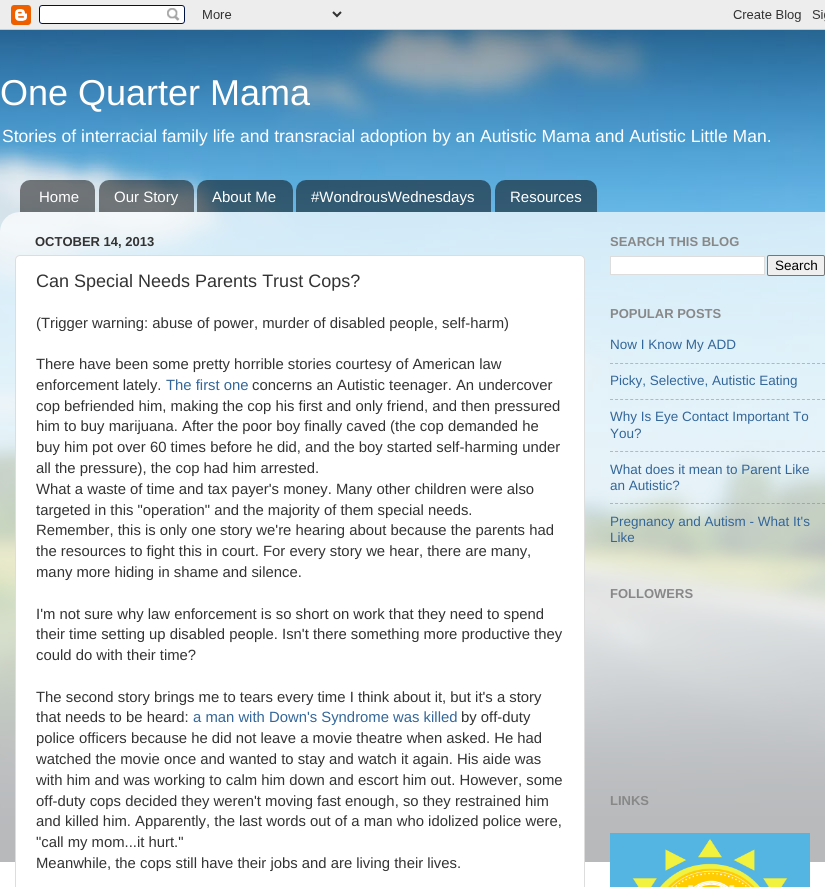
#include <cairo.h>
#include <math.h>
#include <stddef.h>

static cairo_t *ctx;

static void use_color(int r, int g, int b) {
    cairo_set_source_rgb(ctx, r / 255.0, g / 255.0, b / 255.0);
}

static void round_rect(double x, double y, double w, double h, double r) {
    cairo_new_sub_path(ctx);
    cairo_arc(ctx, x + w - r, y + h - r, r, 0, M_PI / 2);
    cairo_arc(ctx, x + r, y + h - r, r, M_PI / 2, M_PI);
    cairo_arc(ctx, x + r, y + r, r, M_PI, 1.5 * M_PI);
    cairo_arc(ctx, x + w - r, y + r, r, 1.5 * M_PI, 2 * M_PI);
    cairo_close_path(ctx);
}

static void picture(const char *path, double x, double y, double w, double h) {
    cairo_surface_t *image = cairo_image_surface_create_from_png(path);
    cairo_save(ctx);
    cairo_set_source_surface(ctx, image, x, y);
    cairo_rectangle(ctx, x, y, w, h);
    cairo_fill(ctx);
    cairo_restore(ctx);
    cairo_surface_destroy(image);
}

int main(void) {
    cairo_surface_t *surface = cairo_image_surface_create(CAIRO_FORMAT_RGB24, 825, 887);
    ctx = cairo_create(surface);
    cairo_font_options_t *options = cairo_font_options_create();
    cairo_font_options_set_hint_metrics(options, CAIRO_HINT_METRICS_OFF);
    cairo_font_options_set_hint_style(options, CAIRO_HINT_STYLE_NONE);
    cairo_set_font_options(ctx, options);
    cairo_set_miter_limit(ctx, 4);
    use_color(255, 255, 255);
    cairo_paint(ctx);
    picture("img1.png", 0, 30, 825, 832);
    picture("img2.png", 0, 0, 825, 30);
    cairo_select_font_face(ctx, "Liberation Sans", CAIRO_FONT_SLANT_NORMAL, CAIRO_FONT_WEIGHT_NORMAL);
    cairo_set_font_size(ctx, 36);
    use_color(255, 255, 255);
    cairo_move_to(ctx, 0, 105);
    cairo_show_text(ctx, "One Quarter Mama");
    cairo_set_font_size(ctx, 17.55);
    cairo_move_to(ctx, 2, 142);
    cairo_show_text(ctx, "Stories of interracial family life and transracial adoption by an Autistic Mama and Autistic Little Man.");
    picture("img3.png", 20, 180, 75, 32);
    cairo_set_font_size(ctx, 15);
    cairo_move_to(ctx, 39, 202);
    cairo_show_text(ctx, "Home");
    picture("img4.png", 99, 180, 95, 32);
    cairo_move_to(ctx, 114, 202);
    cairo_show_text(ctx, "Our Story");
    picture("img5.png", 197, 180, 96, 32);
    cairo_move_to(ctx, 212, 202);
    cairo_show_text(ctx, "About Me");
    picture("img6.png", 296, 180, 195, 32);
    cairo_move_to(ctx, 311, 202);
    cairo_show_text(ctx, "#WondrousWednesdays");
    picture("img7.png", 495, 180, 102, 32);
    cairo_move_to(ctx, 510, 202);
    cairo_show_text(ctx, "Resources");
    picture("img8.png", 0, 212, 825, 675);
    cairo_select_font_face(ctx, "Liberation Sans", CAIRO_FONT_SLANT_NORMAL, CAIRO_FONT_WEIGHT_BOLD);
    cairo_set_font_size(ctx, 13);
    use_color(51, 51, 51);
    cairo_move_to(ctx, 35, 246);
    cairo_show_text(ctx, "OCTOBER 14, 2013");
    use_color(255, 255, 255);
    round_rect(15.5, 255.5, 569, 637, 4.5);
    cairo_fill_preserve(ctx);
    use_color(221, 221, 221);
    cairo_set_line_width(ctx, 1);
    cairo_stroke(ctx);
    cairo_select_font_face(ctx, "Liberation Sans", CAIRO_FONT_SLANT_NORMAL, CAIRO_FONT_WEIGHT_NORMAL);
    cairo_set_font_size(ctx, 18);
    use_color(51, 51, 51);
    cairo_move_to(ctx, 36, 287);
    cairo_show_text(ctx, "Can Special Needs Parents Trust Cops?");
    cairo_set_font_size(ctx, 14.85);
    cairo_move_to(ctx, 36, 328);
    cairo_show_text(ctx, "(Trigger warning: abuse of power, murder of disabled people, self-harm)");
    cairo_move_to(ctx, 36, 369);
    cairo_show_text(ctx, "There have been some pretty horrible stories courtesy of American law");
    cairo_move_to(ctx, 36, 390);
    cairo_show_text(ctx, "enforcement lately.");
    use_color(51, 102, 153);
    cairo_move_to(ctx, 166, 390);
    cairo_show_text(ctx, "The first one");
    use_color(51, 51, 51);
    cairo_move_to(ctx, 252, 390);
    cairo_show_text(ctx, "concerns an Autistic teenager. An undercover");
    cairo_move_to(ctx, 36, 411);
    cairo_show_text(ctx, "cop befriended him, making the cop his first and only friend, and then pressured");
    cairo_move_to(ctx, 36, 431);
    cairo_show_text(ctx, "him to buy marijuana. After the poor boy finally caved (the cop demanded he");
    cairo_move_to(ctx, 36, 452);
    cairo_show_text(ctx, "buy him pot over 60 times before he did, and the boy started self-harming under");
    cairo_move_to(ctx, 36, 473);
    cairo_show_text(ctx, "all the pressure), the cop had him arrested.");
    cairo_move_to(ctx, 36, 494);
    cairo_show_text(ctx, "What a waste of time and tax payer's money. Many other children were also");
    cairo_move_to(ctx, 36, 515);
    cairo_show_text(ctx, "targeted in this \"operation\" and the majority of them special needs.");
    cairo_move_to(ctx, 36, 535);
    cairo_show_text(ctx, "Remember, this is only one story we're hearing about because the parents had");
    cairo_move_to(ctx, 36, 556);
    cairo_show_text(ctx, "the resources to fight this in court. For every story we hear, there are many,");
    cairo_move_to(ctx, 36, 577);
    cairo_show_text(ctx, "many more hiding in shame and silence.");
    cairo_move_to(ctx, 36, 619);
    cairo_show_text(ctx, "I'm not sure why law enforcement is so short on work that they need to spend");
    cairo_move_to(ctx, 36, 639);
    cairo_show_text(ctx, "their time setting up disabled people. Isn't there something more productive they");
    cairo_move_to(ctx, 36, 660);
    cairo_show_text(ctx, "could do with their time?");
    cairo_move_to(ctx, 36, 702);
    cairo_show_text(ctx, "The second story brings me to tears every time I think about it, but it's a story");
    cairo_move_to(ctx, 36, 722);
    cairo_show_text(ctx, "that needs to be heard:");
    use_color(51, 102, 153);
    cairo_move_to(ctx, 193, 722);
    cairo_show_text(ctx, "a man with Down's Syndrome was killed");
    use_color(51, 51, 51);
    cairo_move_to(ctx, 461, 722);
    cairo_show_text(ctx, "by off-duty");
    cairo_move_to(ctx, 36, 743);
    cairo_show_text(ctx, "police officers because he did not leave a movie theatre when asked. He had");
    cairo_move_to(ctx, 36, 764);
    cairo_show_text(ctx, "watched the movie once and wanted to stay and watch it again. His aide was");
    cairo_move_to(ctx, 36, 785);
    cairo_show_text(ctx, "with him and was working to calm him down and escort him out. However, some");
    cairo_move_to(ctx, 36, 806);
    cairo_show_text(ctx, "off-duty cops decided they weren't moving fast enough, so they restrained him");
    cairo_move_to(ctx, 36, 826);
    cairo_show_text(ctx, "and killed him. Apparently, the last words out of a man who idolized police were,");
    cairo_move_to(ctx, 36, 847);
    cairo_show_text(ctx, "\"call my mom...it hurt.\"");
    cairo_move_to(ctx, 36, 868);
    cairo_show_text(ctx, "Meanwhile, the cops still have their jobs and are living their lives.");
    cairo_select_font_face(ctx, "Liberation Sans", CAIRO_FONT_SLANT_NORMAL, CAIRO_FONT_WEIGHT_BOLD);
    cairo_set_font_size(ctx, 13);
    use_color(136, 136, 136);
    cairo_move_to(ctx, 610, 246);
    cairo_show_text(ctx, "SEARCH THIS BLOG");
    use_color(255, 255, 255);
    cairo_rectangle(ctx, 610.5, 256.5, 154, 18);
    cairo_fill_preserve(ctx);
    use_color(221, 221, 221);
    cairo_stroke(ctx);
    use_color(239, 239, 239);
    round_rect(767.5, 255.5, 57, 20, 1.5);
    cairo_fill_preserve(ctx);
    use_color(118, 118, 118);
    cairo_stroke(ctx);
    cairo_select_font_face(ctx, "Liberation Sans", CAIRO_FONT_SLANT_NORMAL, CAIRO_FONT_WEIGHT_NORMAL);
    cairo_set_font_size(ctx, 13.5);
    use_color(0, 0, 0);
    cairo_move_to(ctx, 775, 270);
    cairo_show_text(ctx, "Search");
    cairo_select_font_face(ctx, "Liberation Sans", CAIRO_FONT_SLANT_NORMAL, CAIRO_FONT_WEIGHT_BOLD);
    cairo_set_font_size(ctx, 13);
    use_color(136, 136, 136);
    cairo_move_to(ctx, 610, 318);
    cairo_show_text(ctx, "POPULAR POSTS");
    cairo_select_font_face(ctx, "Liberation Sans", CAIRO_FONT_SLANT_NORMAL, CAIRO_FONT_WEIGHT_NORMAL);
    cairo_set_font_size(ctx, 13.5);
    use_color(51, 102, 153);
    cairo_move_to(ctx, 610, 349);
    cairo_show_text(ctx, "Now I Know My ADD");
    cairo_new_path(ctx);
    cairo_move_to(ctx, 610, 363.5);
    cairo_line_to(ctx, 825, 363.5);
    use_color(176, 185, 189);
    cairo_set_dash(ctx, (double[]){3, 2.05}, 2, 0);
    cairo_stroke(ctx);
    use_color(51, 102, 153);
    cairo_move_to(ctx, 610, 385);
    cairo_show_text(ctx, "Picky, Selective, Autistic Eating");
    cairo_new_path(ctx);
    cairo_move_to(ctx, 610, 399.5);
    cairo_line_to(ctx, 825, 399.5);
    use_color(177, 185, 189);
    cairo_stroke(ctx);
    use_color(51, 102, 153);
    cairo_move_to(ctx, 610, 421);
    cairo_show_text(ctx, "Why Is Eye Contact Important To");
    cairo_move_to(ctx, 610, 438);
    cairo_show_text(ctx, "You?");
    cairo_new_path(ctx);
    cairo_move_to(ctx, 610, 451.5);
    cairo_line_to(ctx, 825, 451.5);
    cairo_set_source_rgba(ctx, 0.502, 0.502, 0.502, 0.5);
    cairo_stroke(ctx);
    use_color(51, 102, 153);
    cairo_move_to(ctx, 610, 474);
    cairo_show_text(ctx, "What does it mean to Parent Like");
    cairo_move_to(ctx, 610, 490);
    cairo_show_text(ctx, "an Autistic?");
    cairo_new_path(ctx);
    cairo_move_to(ctx, 610, 503.5);
    cairo_line_to(ctx, 825, 503.5);
    cairo_set_source_rgba(ctx, 0.502, 0.502, 0.502, 0.5);
    cairo_stroke(ctx);
    use_color(51, 102, 153);
    cairo_move_to(ctx, 610, 526);
    cairo_show_text(ctx, "Pregnancy and Autism - What It's");
    cairo_move_to(ctx, 610, 542);
    cairo_show_text(ctx, "Like");
    cairo_select_font_face(ctx, "Liberation Sans", CAIRO_FONT_SLANT_NORMAL, CAIRO_FONT_WEIGHT_BOLD);
    cairo_set_font_size(ctx, 13);
    use_color(136, 136, 136);
    cairo_move_to(ctx, 610, 598);
    cairo_show_text(ctx, "FOLLOWERS");
    cairo_move_to(ctx, 610, 805);
    cairo_show_text(ctx, "LINKS");
    picture("img9.png", 610, 833, 200, 54);
    cairo_surface_write_to_png(surface, "result.png");
    cairo_font_options_destroy(options);
    cairo_destroy(ctx);
    cairo_surface_destroy(surface);
    return 0;
}
